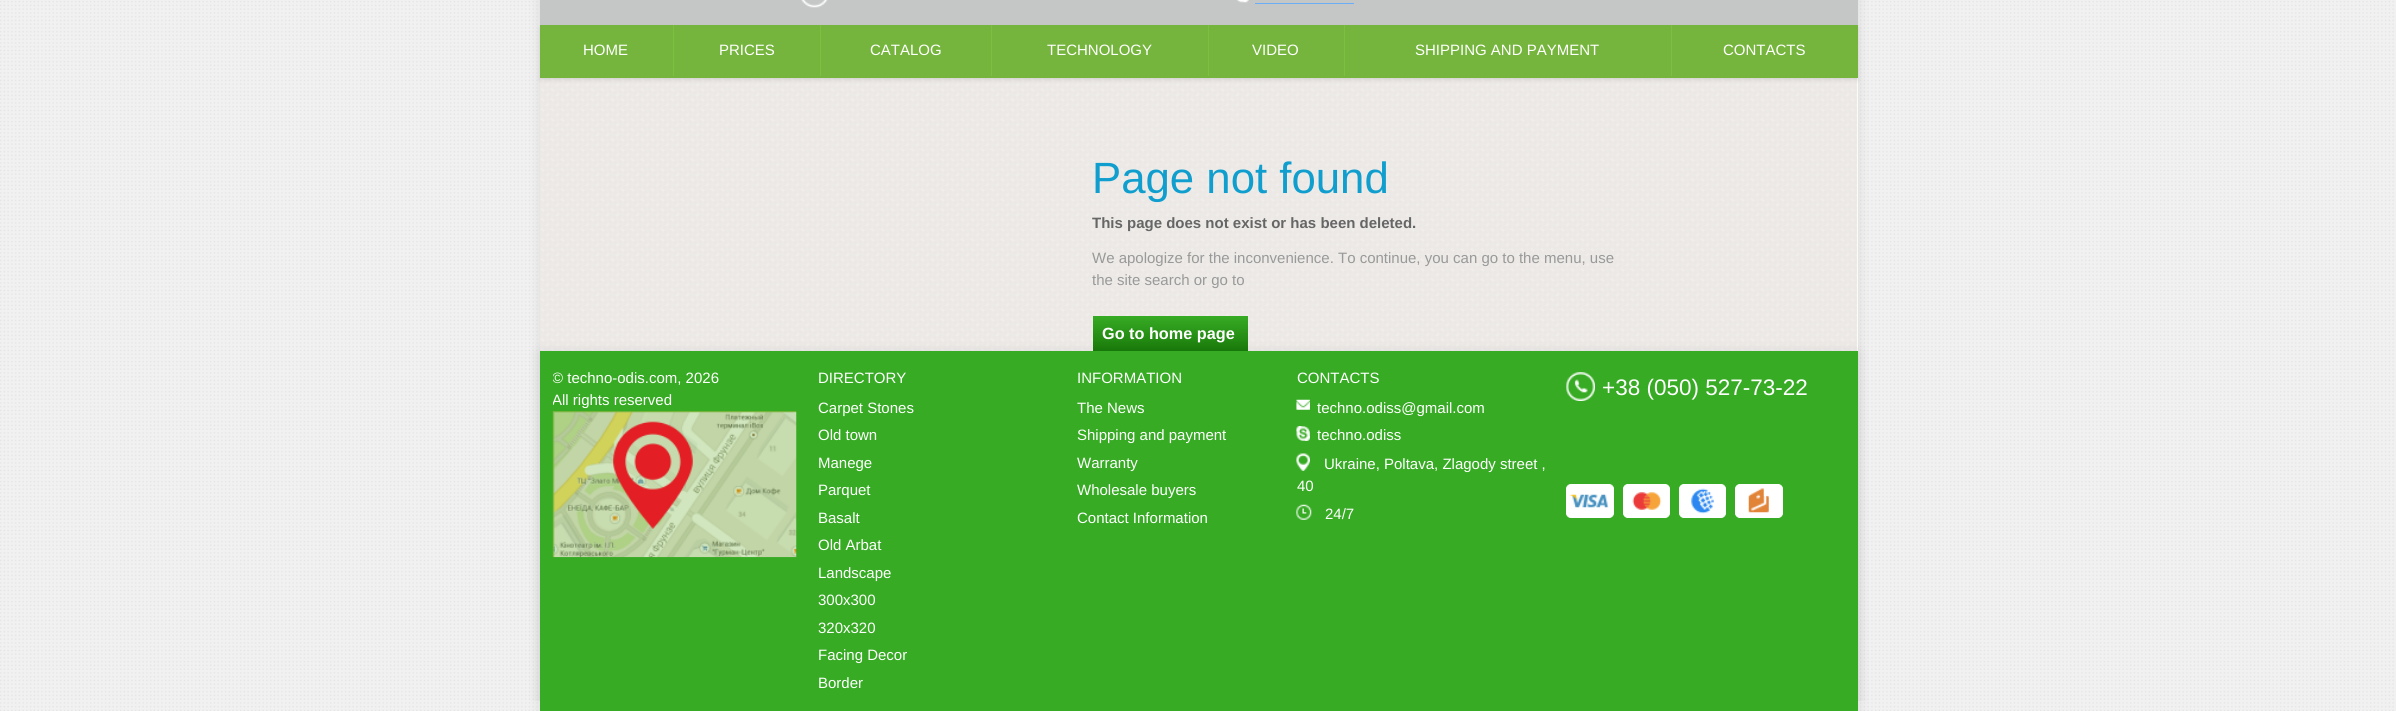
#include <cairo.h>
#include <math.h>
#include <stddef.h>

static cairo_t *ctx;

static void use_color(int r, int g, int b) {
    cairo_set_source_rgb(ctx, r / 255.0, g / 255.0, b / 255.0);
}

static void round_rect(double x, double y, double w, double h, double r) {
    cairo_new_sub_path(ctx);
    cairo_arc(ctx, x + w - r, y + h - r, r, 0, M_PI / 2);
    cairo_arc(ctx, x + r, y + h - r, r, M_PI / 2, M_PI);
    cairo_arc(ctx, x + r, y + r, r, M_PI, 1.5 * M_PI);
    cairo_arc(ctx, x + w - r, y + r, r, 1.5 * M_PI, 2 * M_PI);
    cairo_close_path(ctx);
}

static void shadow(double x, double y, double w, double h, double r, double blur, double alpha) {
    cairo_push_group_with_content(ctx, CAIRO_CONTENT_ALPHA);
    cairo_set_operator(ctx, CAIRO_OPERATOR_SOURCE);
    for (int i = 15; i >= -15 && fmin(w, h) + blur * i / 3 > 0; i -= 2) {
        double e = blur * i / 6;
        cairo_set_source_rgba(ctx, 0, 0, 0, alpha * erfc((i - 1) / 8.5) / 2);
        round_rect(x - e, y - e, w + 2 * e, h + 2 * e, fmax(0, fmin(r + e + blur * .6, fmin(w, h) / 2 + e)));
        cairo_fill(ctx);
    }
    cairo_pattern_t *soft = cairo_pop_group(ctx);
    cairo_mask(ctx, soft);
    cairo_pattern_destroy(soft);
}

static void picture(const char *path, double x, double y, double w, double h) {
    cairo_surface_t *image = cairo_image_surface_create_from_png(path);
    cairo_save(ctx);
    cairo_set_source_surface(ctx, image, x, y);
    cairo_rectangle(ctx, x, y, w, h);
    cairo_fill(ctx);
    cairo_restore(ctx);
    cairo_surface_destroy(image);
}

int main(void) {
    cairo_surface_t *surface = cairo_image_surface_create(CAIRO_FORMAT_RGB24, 2396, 711);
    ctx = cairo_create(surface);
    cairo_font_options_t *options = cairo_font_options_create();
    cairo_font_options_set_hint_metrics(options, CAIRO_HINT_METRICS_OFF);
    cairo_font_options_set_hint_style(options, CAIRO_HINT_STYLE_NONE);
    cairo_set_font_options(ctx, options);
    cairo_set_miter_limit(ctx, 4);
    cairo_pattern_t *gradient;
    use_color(255, 255, 255);
    cairo_paint(ctx);
    picture("img1.png", 0, 0, 2396, 711);
    cairo_save(ctx);
    cairo_rectangle(ctx, 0, 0, 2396, 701);
    cairo_clip(ctx);
    use_color(0, 0, 0);
    shadow(540, -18, 1318, 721, 0, 6, 0.1);
    cairo_restore(ctx);
    use_color(255, 255, 255);
    cairo_rectangle(ctx, 1857, 78, 1, 273);
    cairo_fill(ctx);
    use_color(197, 198, 198);
    cairo_rectangle(ctx, 540, 0, 1318, 25);
    cairo_fill(ctx);
    picture("img2.png", 801, 0, 27, 8);
    picture("img3.png", 1237, 0, 12, 3);
    use_color(107, 173, 246);
    cairo_rectangle(ctx, 1255, 3, 99, 1);
    cairo_fill(ctx);
    picture("img4.png", 540, 78, 1318, 273);
    use_color(0, 0, 0);
    shadow(540, 28, 1318, 52, 0, 2, 0.1);
    use_color(117, 181, 61);
    cairo_rectangle(ctx, 540, 25, 1318, 53);
    cairo_fill(ctx);
    cairo_select_font_face(ctx, "Liberation Sans", CAIRO_FONT_SLANT_NORMAL, CAIRO_FONT_WEIGHT_NORMAL);
    cairo_set_font_size(ctx, 15);
    use_color(255, 255, 255);
    cairo_move_to(ctx, 583, 55);
    cairo_show_text(ctx, "HOME");
    use_color(125, 192, 65);
    cairo_rectangle(ctx, 673, 25, 1, 51);
    cairo_fill(ctx);
    use_color(255, 255, 255);
    cairo_move_to(ctx, 719, 55);
    cairo_show_text(ctx, "PRICES");
    use_color(125, 192, 65);
    cairo_rectangle(ctx, 820, 25, 1, 51);
    cairo_fill(ctx);
    use_color(255, 255, 255);
    cairo_move_to(ctx, 870, 55);
    cairo_show_text(ctx, "CATALOG");
    use_color(125, 192, 65);
    cairo_rectangle(ctx, 991, 25, 1, 51);
    cairo_fill(ctx);
    use_color(255, 255, 255);
    cairo_move_to(ctx, 1047, 55);
    cairo_show_text(ctx, "TECHNOLOGY");
    use_color(125, 192, 65);
    cairo_rectangle(ctx, 1208, 25, 1, 51);
    cairo_fill(ctx);
    use_color(255, 255, 255);
    cairo_move_to(ctx, 1252, 55);
    cairo_show_text(ctx, "VIDEO");
    use_color(125, 192, 65);
    cairo_rectangle(ctx, 1344, 25, 1, 51);
    cairo_fill(ctx);
    use_color(255, 255, 255);
    cairo_move_to(ctx, 1415, 55);
    cairo_show_text(ctx, "SHIPPING AND PAYMENT");
    use_color(125, 192, 65);
    cairo_rectangle(ctx, 1671, 25, 1, 51);
    cairo_fill(ctx);
    use_color(255, 255, 255);
    cairo_move_to(ctx, 1723, 55);
    cairo_show_text(ctx, "CONTACTS");
    cairo_set_font_size(ctx, 43.75);
    use_color(15, 158, 205);
    cairo_move_to(ctx, 1092, 193);
    cairo_show_text(ctx, "Page not found");
    cairo_select_font_face(ctx, "Liberation Sans", CAIRO_FONT_SLANT_NORMAL, CAIRO_FONT_WEIGHT_BOLD);
    cairo_set_font_size(ctx, 15);
    use_color(102, 102, 102);
    cairo_move_to(ctx, 1092, 228);
    cairo_show_text(ctx, "This page does not exist or has been deleted.");
    cairo_select_font_face(ctx, "Liberation Sans", CAIRO_FONT_SLANT_NORMAL, CAIRO_FONT_WEIGHT_NORMAL);
    use_color(153, 153, 153);
    cairo_move_to(ctx, 1092, 263);
    cairo_show_text(ctx, "We apologize for the inconvenience. To continue, you can go to the menu, use");
    cairo_move_to(ctx, 1092, 285);
    cairo_show_text(ctx, "the site search or go to");
    gradient = cairo_pattern_create_linear(1170, 316, 1170, 351);
    cairo_pattern_add_color_stop_rgba(gradient, 0, 0.216, 0.671, 0.141, 1);
    cairo_pattern_add_color_stop_rgba(gradient, 1, 0.098, 0.478, 0.039, 1);
    cairo_set_source(ctx, gradient);
    cairo_pattern_destroy(gradient);
    cairo_rectangle(ctx, 1093, 316, 155, 35);
    cairo_fill(ctx);
    cairo_select_font_face(ctx, "Liberation Sans", CAIRO_FONT_SLANT_NORMAL, CAIRO_FONT_WEIGHT_BOLD);
    cairo_set_font_size(ctx, 16.25);
    use_color(255, 255, 255);
    cairo_move_to(ctx, 1102, 339);
    cairo_show_text(ctx, "Go to home page");
    use_color(0, 0, 0);
    shadow(540, 353, 1318, 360, 0, 6, 0.1);
    use_color(55, 171, 36);
    cairo_rectangle(ctx, 540, 351, 1318, 360);
    cairo_fill(ctx);
    cairo_save(ctx);
    cairo_rectangle(ctx, 553, 366, 266, 192);
    cairo_clip(ctx);
    cairo_select_font_face(ctx, "Liberation Sans", CAIRO_FONT_SLANT_NORMAL, CAIRO_FONT_WEIGHT_NORMAL);
    cairo_set_font_size(ctx, 15);
    use_color(255, 255, 255);
    cairo_move_to(ctx, 552, 383);
    cairo_show_text(ctx, "© techno-odis.com, 2026");
    cairo_move_to(ctx, 552, 405);
    cairo_show_text(ctx, "All rights reserved");
    cairo_restore(ctx);
    picture("img5.png", 552, 411, 245, 147);
    cairo_select_font_face(ctx, "Liberation Sans", CAIRO_FONT_SLANT_NORMAL, CAIRO_FONT_WEIGHT_NORMAL);
    cairo_set_font_size(ctx, 15);
    use_color(255, 255, 255);
    cairo_move_to(ctx, 818, 383);
    cairo_show_text(ctx, "DIRECTORY");
    cairo_move_to(ctx, 818, 413);
    cairo_show_text(ctx, "Carpet Stones");
    cairo_move_to(ctx, 818, 440);
    cairo_show_text(ctx, "Old town");
    cairo_move_to(ctx, 818, 468);
    cairo_show_text(ctx, "Manege");
    cairo_move_to(ctx, 818, 495);
    cairo_show_text(ctx, "Parquet");
    cairo_move_to(ctx, 818, 523);
    cairo_show_text(ctx, "Basalt");
    cairo_move_to(ctx, 818, 550);
    cairo_show_text(ctx, "Old Arbat");
    cairo_move_to(ctx, 818, 578);
    cairo_show_text(ctx, "Landscape");
    cairo_move_to(ctx, 818, 605);
    cairo_show_text(ctx, "300х300");
    cairo_move_to(ctx, 818, 633);
    cairo_show_text(ctx, "320х320");
    cairo_move_to(ctx, 818, 660);
    cairo_show_text(ctx, "Facing Decor");
    cairo_move_to(ctx, 818, 688);
    cairo_show_text(ctx, "Border");
    cairo_move_to(ctx, 1077, 383);
    cairo_show_text(ctx, "INFORMATION");
    cairo_move_to(ctx, 1077, 413);
    cairo_show_text(ctx, "The News");
    cairo_move_to(ctx, 1077, 440);
    cairo_show_text(ctx, "Shipping and payment");
    cairo_move_to(ctx, 1077, 468);
    cairo_show_text(ctx, "Warranty");
    cairo_move_to(ctx, 1077, 495);
    cairo_show_text(ctx, "Wholesale buyers");
    cairo_move_to(ctx, 1077, 523);
    cairo_show_text(ctx, "Contact Information");
    cairo_move_to(ctx, 1297, 383);
    cairo_show_text(ctx, "CONTACTS");
    picture("img6.png", 1296, 399, 14, 11);
    cairo_move_to(ctx, 1317, 413);
    cairo_show_text(ctx, "techno.odiss@gmail.com");
    picture("img7.png", 1296, 426, 14, 15);
    cairo_move_to(ctx, 1317, 440);
    cairo_show_text(ctx, "techno.odiss");
    picture("img8.png", 1296, 453, 14, 18);
    cairo_move_to(ctx, 1324, 469);
    cairo_show_text(ctx, "Ukraine, Poltava, Zlagody street ,");
    cairo_move_to(ctx, 1297, 491);
    cairo_show_text(ctx, "40");
    picture("img9.png", 1296, 504, 16, 16);
    cairo_move_to(ctx, 1325, 519);
    cairo_show_text(ctx, "24/7");
    picture("img10.png", 1566, 372, 29, 29);
    cairo_set_font_size(ctx, 22.5);
    cairo_move_to(ctx, 1602, 395);
    cairo_show_text(ctx, "+38 (050) 527-73-22");
    round_rect(1566.5, 484.5, 47, 33, 4.5);
    cairo_fill_preserve(ctx);
    cairo_set_line_width(ctx, 1);
    cairo_stroke(ctx);
    picture("img11.png", 1570, 494, 39, 14);
    round_rect(1623.5, 484.5, 46, 33, 4.5);
    cairo_fill_preserve(ctx);
    cairo_stroke(ctx);
    picture("img12.png", 1632, 492, 30, 18);
    round_rect(1679.5, 484.5, 46, 33, 4.5);
    cairo_fill_preserve(ctx);
    cairo_stroke(ctx);
    picture("img13.png", 1691, 488, 23, 26);
    round_rect(1735.5, 484.5, 47, 33, 4.5);
    cairo_fill_preserve(ctx);
    cairo_stroke(ctx);
    picture("img14.png", 1748, 488, 21, 25);
    cairo_surface_write_to_png(surface, "result.png");
    cairo_font_options_destroy(options);
    cairo_destroy(ctx);
    cairo_surface_destroy(surface);
    return 0;
}
